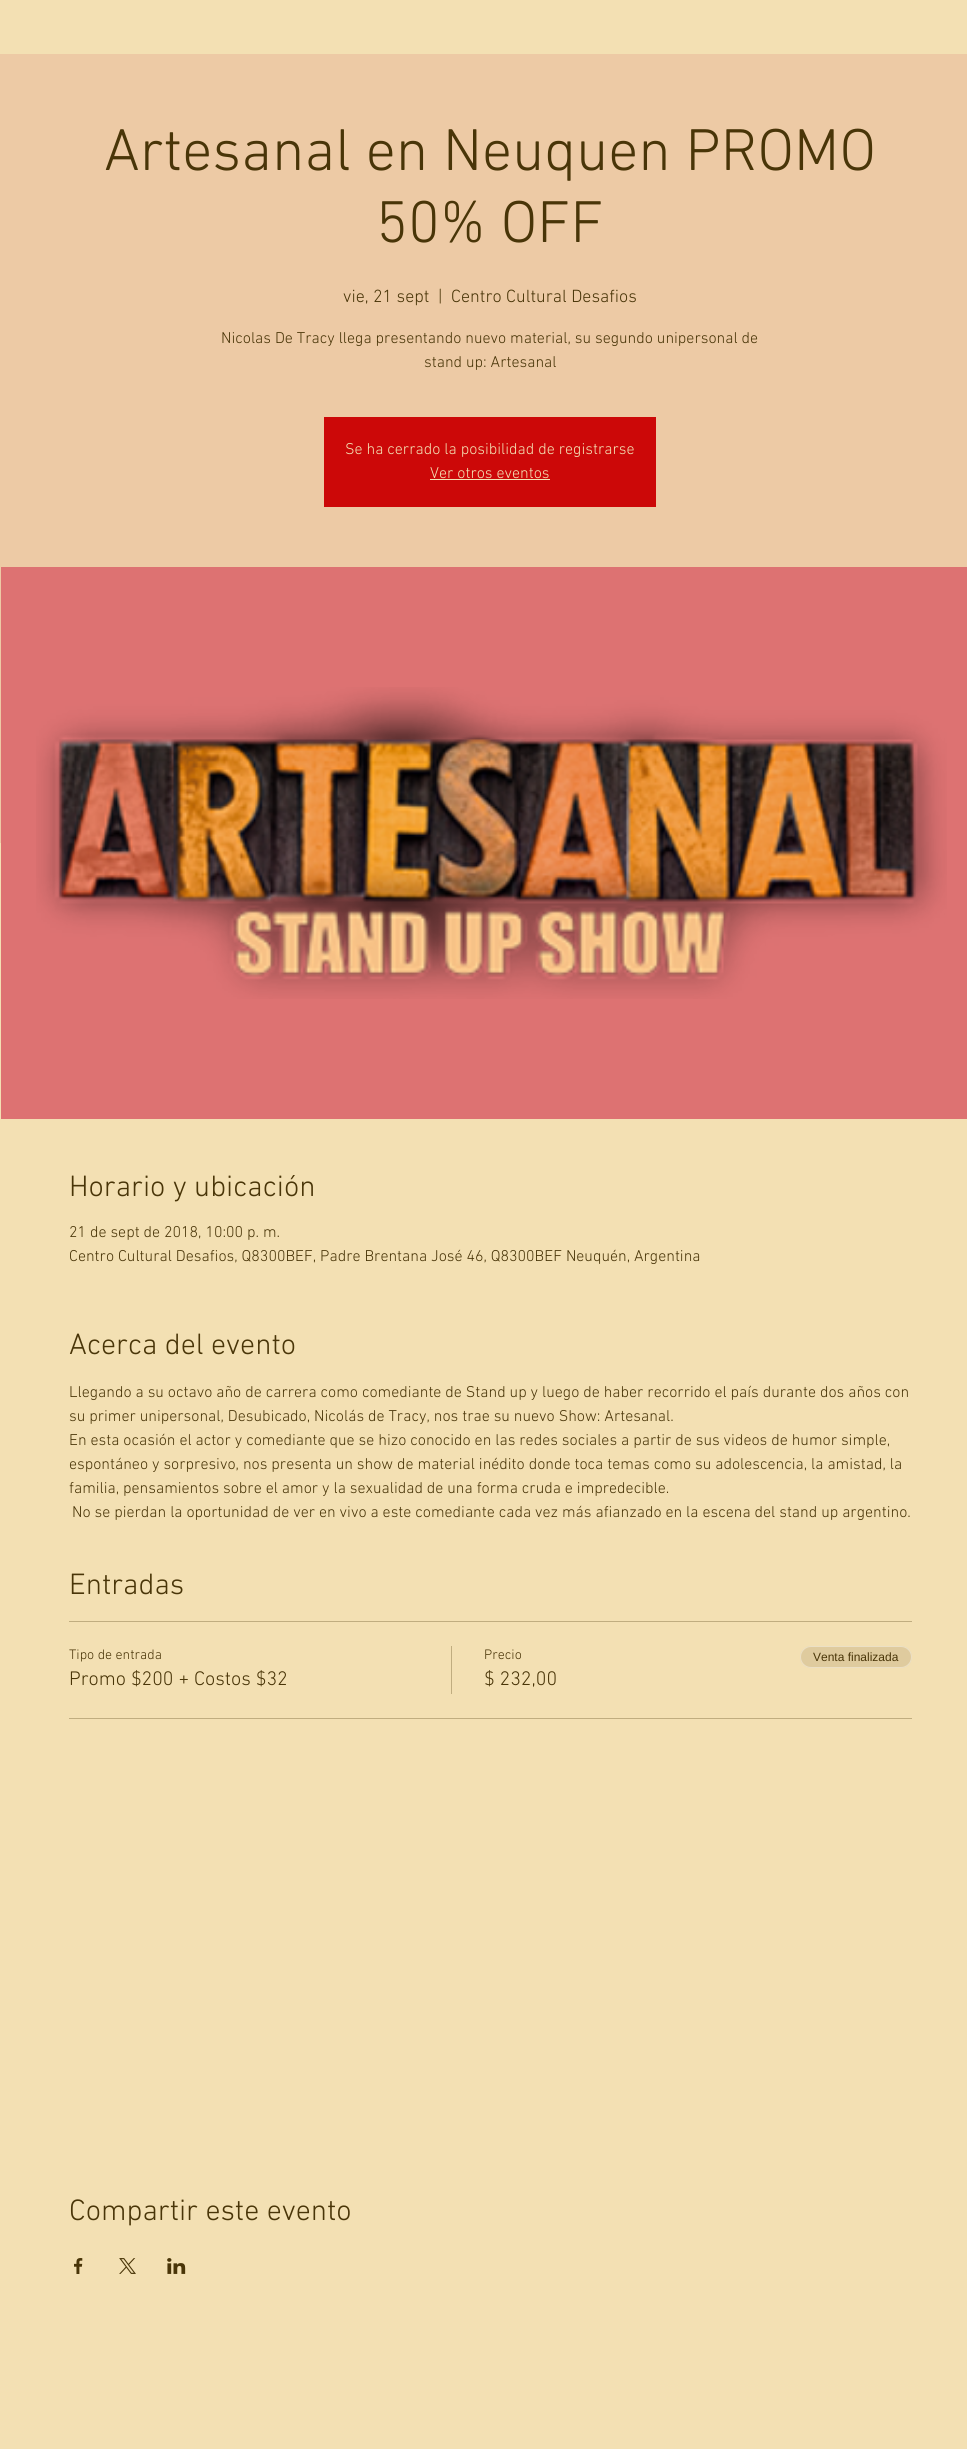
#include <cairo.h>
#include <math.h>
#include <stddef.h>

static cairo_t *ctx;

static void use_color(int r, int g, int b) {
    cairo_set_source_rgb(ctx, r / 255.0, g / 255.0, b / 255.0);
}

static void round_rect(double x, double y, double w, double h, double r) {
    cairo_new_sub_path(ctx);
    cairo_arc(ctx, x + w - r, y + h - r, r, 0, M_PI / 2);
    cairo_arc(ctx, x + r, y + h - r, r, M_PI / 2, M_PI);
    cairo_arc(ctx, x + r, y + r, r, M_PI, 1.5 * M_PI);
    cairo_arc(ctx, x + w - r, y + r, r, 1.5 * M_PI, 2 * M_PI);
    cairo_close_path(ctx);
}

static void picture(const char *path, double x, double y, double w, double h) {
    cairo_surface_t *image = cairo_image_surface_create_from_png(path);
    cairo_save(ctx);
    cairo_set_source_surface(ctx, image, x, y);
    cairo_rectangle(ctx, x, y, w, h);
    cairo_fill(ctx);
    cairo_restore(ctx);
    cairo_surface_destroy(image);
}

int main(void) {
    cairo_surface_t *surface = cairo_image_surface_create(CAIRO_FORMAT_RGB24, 967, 2449);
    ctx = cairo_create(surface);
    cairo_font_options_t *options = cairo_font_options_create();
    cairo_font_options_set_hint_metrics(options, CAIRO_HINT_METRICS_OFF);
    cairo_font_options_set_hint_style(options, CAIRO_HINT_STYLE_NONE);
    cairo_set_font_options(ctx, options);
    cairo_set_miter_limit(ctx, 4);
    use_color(243, 224, 179);
    cairo_paint(ctx);
    use_color(237, 202, 165);
    cairo_rectangle(ctx, 0, 54, 967, 789);
    cairo_fill(ctx);
    cairo_select_font_face(ctx, "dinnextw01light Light", CAIRO_FONT_SLANT_NORMAL, CAIRO_FONT_WEIGHT_NORMAL);
    cairo_set_font_size(ctx, 60);
    use_color(73, 53, 8);
    cairo_move_to(ctx, 104, 170);
    cairo_show_text(ctx, "Artesanal en Neuquen PROMO");
    cairo_move_to(ctx, 376, 242);
    cairo_show_text(ctx, "50% OFF");
    cairo_set_font_size(ctx, 18);
    cairo_move_to(ctx, 343, 302);
    cairo_show_text(ctx, "vie, 21 sept");
    cairo_move_to(ctx, 438, 302);
    cairo_show_text(ctx, "|");
    cairo_move_to(ctx, 451, 302);
    cairo_show_text(ctx, "Centro Cultural Desafios");
    cairo_set_font_size(ctx, 16);
    cairo_move_to(ctx, 221, 343);
    cairo_show_text(ctx, "Nicolas De Tracy llega presentando nuevo material, su segundo unipersonal de");
    cairo_move_to(ctx, 424, 367);
    cairo_show_text(ctx, "stand up: Artesanal");
    use_color(204, 8, 8);
    cairo_rectangle(ctx, 324, 417, 332, 90);
    cairo_fill(ctx);
    use_color(243, 224, 179);
    cairo_move_to(ctx, 345, 454);
    cairo_show_text(ctx, "Se ha cerrado la posibilidad de registrarse");
    cairo_move_to(ctx, 430, 478);
    cairo_show_text(ctx, "Ver otros eventos");
    cairo_rectangle(ctx, 430, 479, 120, 1);
    cairo_fill(ctx);
    use_color(221, 114, 114);
    cairo_rectangle(ctx, 1, 567, 966, 552);
    cairo_fill(ctx);
    picture("img1.png", 36, 687, 911, 312);
    cairo_set_font_size(ctx, 30);
    use_color(73, 53, 8);
    cairo_move_to(ctx, 69, 1196);
    cairo_show_text(ctx, "Horario y ubicación");
    cairo_set_font_size(ctx, 16);
    cairo_move_to(ctx, 69, 1237);
    cairo_show_text(ctx, "21 de sept de 2018, 10:00 p. m.");
    cairo_move_to(ctx, 69, 1261);
    cairo_show_text(ctx, "Centro Cultural Desafios, Q8300BEF, Padre Brentana José 46, Q8300BEF Neuquén, Argentina");
    cairo_set_font_size(ctx, 30);
    cairo_move_to(ctx, 69, 1354);
    cairo_show_text(ctx, "Acerca del evento");
    cairo_set_font_size(ctx, 16);
    cairo_move_to(ctx, 69, 1397);
    cairo_show_text(ctx, "Llegando a su octavo año de carrera como comediante de Stand up y luego de haber recorrido el país durante dos años con");
    cairo_move_to(ctx, 69, 1421);
    cairo_show_text(ctx, "su primer unipersonal, Desubicado, Nicolás de Tracy, nos trae su nuevo Show: Artesanal.");
    cairo_move_to(ctx, 69, 1445);
    cairo_show_text(ctx, "En esta ocasión el actor y comediante que se hizo conocido en las redes sociales a partir de sus videos de humor simple,");
    cairo_move_to(ctx, 69, 1469);
    cairo_show_text(ctx, "espontáneo y sorpresivo, nos presenta un show de material inédito donde toca temas como su adolescencia, la amistad, la");
    cairo_move_to(ctx, 69, 1493);
    cairo_show_text(ctx, "familia, pensamientos sobre el amor y la sexualidad de una forma cruda e impredecible.");
    cairo_move_to(ctx, 72, 1517);
    cairo_show_text(ctx, "No se pierdan la oportunidad de ver en vivo a este comediante cada vez más afianzado en la escena del stand up argentino.");
    cairo_set_font_size(ctx, 30);
    cairo_move_to(ctx, 69, 1594);
    cairo_show_text(ctx, "Entradas");
    use_color(192, 173, 128);
    cairo_rectangle(ctx, 69, 1621, 843, 1);
    cairo_fill(ctx);
    cairo_rectangle(ctx, 69, 1718, 843, 1);
    cairo_fill(ctx);
    cairo_set_font_size(ctx, 14);
    use_color(73, 53, 8);
    cairo_move_to(ctx, 69, 1659);
    cairo_show_text(ctx, "Tipo de entrada");
    cairo_set_font_size(ctx, 20);
    cairo_move_to(ctx, 69, 1685);
    cairo_show_text(ctx, "Promo $200 + Costos $32");
    use_color(192, 173, 128);
    cairo_rectangle(ctx, 451, 1646, 1, 48);
    cairo_fill(ctx);
    cairo_set_font_size(ctx, 14);
    use_color(73, 53, 8);
    cairo_move_to(ctx, 484, 1659);
    cairo_show_text(ctx, "Precio");
    cairo_set_font_size(ctx, 20);
    cairo_move_to(ctx, 484, 1685);
    cairo_show_text(ctx, "$ 232,00");
    use_color(223, 203, 158);
    round_rect(800, 1646, 112, 22, 11);
    cairo_fill(ctx);
    round_rect(800.5, 1646.5, 111, 21, 10.5);
    cairo_set_source_rgba(ctx, 1, 1, 1, 0.4);
    cairo_set_line_width(ctx, 1);
    cairo_stroke(ctx);
    cairo_select_font_face(ctx, "Liberation Sans", CAIRO_FONT_SLANT_NORMAL, CAIRO_FONT_WEIGHT_NORMAL);
    cairo_set_font_size(ctx, 12);
    use_color(73, 53, 8);
    cairo_move_to(ctx, 813, 1661);
    cairo_show_text(ctx, "Venta finalizada");
    cairo_select_font_face(ctx, "dinnextw01light Light", CAIRO_FONT_SLANT_NORMAL, CAIRO_FONT_WEIGHT_NORMAL);
    cairo_set_font_size(ctx, 30);
    cairo_move_to(ctx, 69, 2220);
    cairo_show_text(ctx, "Compartir este evento");
    picture("img2.png", 74, 2258, 9, 16);
    picture("img3.png", 119, 2258, 17, 16);
    picture("img4.png", 167, 2258, 19, 16);
    cairo_surface_write_to_png(surface, "result.png");
    cairo_font_options_destroy(options);
    cairo_destroy(ctx);
    cairo_surface_destroy(surface);
    return 0;
}
